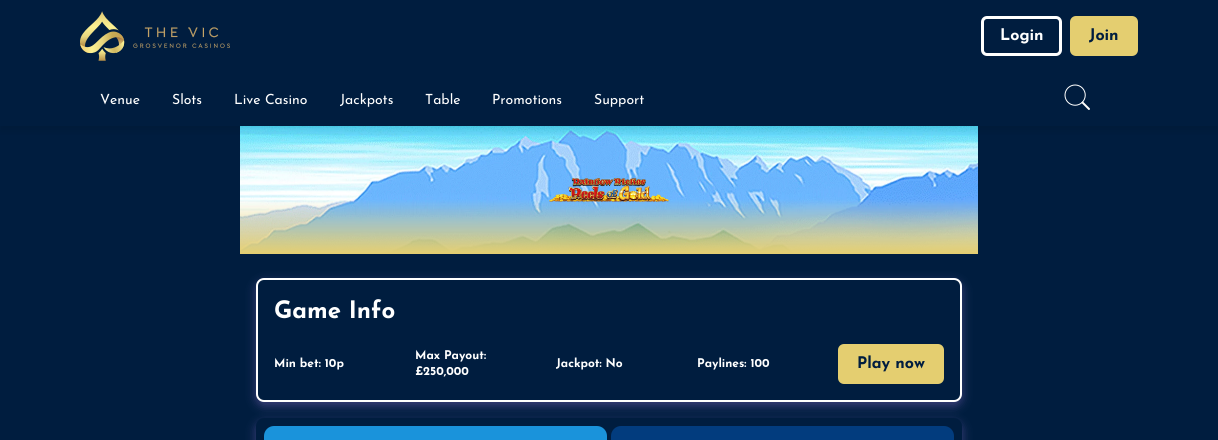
#include <cairo.h>
#include <math.h>
#include <stddef.h>

static cairo_t *ctx;

static void use_color(int r, int g, int b) {
    cairo_set_source_rgb(ctx, r / 255.0, g / 255.0, b / 255.0);
}

static void round_rect(double x, double y, double w, double h, double r) {
    cairo_new_sub_path(ctx);
    cairo_arc(ctx, x + w - r, y + h - r, r, 0, M_PI / 2);
    cairo_arc(ctx, x + r, y + h - r, r, M_PI / 2, M_PI);
    cairo_arc(ctx, x + r, y + r, r, M_PI, 1.5 * M_PI);
    cairo_arc(ctx, x + w - r, y + r, r, 1.5 * M_PI, 2 * M_PI);
    cairo_close_path(ctx);
}

static void shadow(double x, double y, double w, double h, double r, double blur, double alpha) {
    cairo_push_group_with_content(ctx, CAIRO_CONTENT_ALPHA);
    cairo_set_operator(ctx, CAIRO_OPERATOR_SOURCE);
    for (int i = 15; i >= -15 && fmin(w, h) + blur * i / 3 > 0; i -= 2) {
        double e = blur * i / 6;
        cairo_set_source_rgba(ctx, 0, 0, 0, alpha * erfc((i - 1) / 8.5) / 2);
        round_rect(x - e, y - e, w + 2 * e, h + 2 * e, fmax(0, fmin(r + e + blur * .6, fmin(w, h) / 2 + e)));
        cairo_fill(ctx);
    }
    cairo_pattern_t *soft = cairo_pop_group(ctx);
    cairo_mask(ctx, soft);
    cairo_pattern_destroy(soft);
}

static void picture(const char *path, double x, double y, double w, double h) {
    cairo_surface_t *image = cairo_image_surface_create_from_png(path);
    cairo_save(ctx);
    cairo_set_source_surface(ctx, image, x, y);
    cairo_rectangle(ctx, x, y, w, h);
    cairo_fill(ctx);
    cairo_restore(ctx);
    cairo_surface_destroy(image);
}

int main(void) {
    cairo_surface_t *surface = cairo_image_surface_create(CAIRO_FORMAT_RGB24, 1218, 440);
    ctx = cairo_create(surface);
    cairo_font_options_t *options = cairo_font_options_create();
    cairo_font_options_set_hint_metrics(options, CAIRO_HINT_METRICS_OFF);
    cairo_font_options_set_hint_style(options, CAIRO_HINT_STYLE_NONE);
    cairo_set_font_options(ctx, options);
    cairo_set_miter_limit(ctx, 4);
    use_color(0, 29, 63);
    cairo_paint(ctx);
    picture("img3.png", 240, 126, 738, 128);
    cairo_save(ctx);
    cairo_rectangle(ctx, 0, 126, 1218, 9);
    cairo_clip(ctx);
    use_color(0, 0, 0);
    shadow(0, 5, 1218, 126, 0, 5, 0.1);
    cairo_restore(ctx);
    picture("img1.png", 80, 11, 150, 50);
    round_rect(982.5, 17.5, 78, 37, 4.5);
    use_color(255, 255, 255);
    cairo_set_line_width(ctx, 3);
    cairo_stroke(ctx);
    cairo_select_font_face(ctx, "Josefin Sans", CAIRO_FONT_SLANT_NORMAL, CAIRO_FONT_WEIGHT_BOLD);
    cairo_set_font_size(ctx, 16);
    cairo_move_to(ctx, 1000, 40);
    cairo_show_text(ctx, "Login");
    use_color(228, 206, 112);
    round_rect(1071.5, 17.5, 65, 37, 4.5);
    cairo_fill_preserve(ctx);
    cairo_stroke(ctx);
    use_color(0, 29, 63);
    cairo_move_to(ctx, 1089, 40);
    cairo_show_text(ctx, "Join");
    cairo_select_font_face(ctx, "Josefin Sans", CAIRO_FONT_SLANT_NORMAL, CAIRO_FONT_WEIGHT_NORMAL);
    cairo_set_font_size(ctx, 14);
    use_color(255, 255, 255);
    cairo_move_to(ctx, 100, 104);
    cairo_show_text(ctx, "Venue");
    cairo_move_to(ctx, 172, 104);
    cairo_show_text(ctx, "Slots");
    cairo_move_to(ctx, 234, 104);
    cairo_show_text(ctx, "Live Casino");
    cairo_move_to(ctx, 340, 104);
    cairo_show_text(ctx, "Jackpots");
    cairo_move_to(ctx, 425, 104);
    cairo_show_text(ctx, "Table");
    cairo_move_to(ctx, 492, 104);
    cairo_show_text(ctx, "Promotions");
    cairo_move_to(ctx, 594, 104);
    cairo_show_text(ctx, "Support");
    picture("img2.png", 1064, 84, 26, 26);
    picture("img4.png", 549, 178, 120, 24);
    use_color(172, 129, 238);
    shadow(256, 282, 706, 124, 8, 5, 0.35);
    use_color(0, 29, 63);
    round_rect(257, 279, 704, 122, 7);
    cairo_fill_preserve(ctx);
    use_color(255, 255, 255);
    cairo_set_line_width(ctx, 2);
    cairo_stroke(ctx);
    cairo_select_font_face(ctx, "Josefin Sans", CAIRO_FONT_SLANT_NORMAL, CAIRO_FONT_WEIGHT_BOLD);
    cairo_set_font_size(ctx, 24);
    cairo_move_to(ctx, 274, 318);
    cairo_show_text(ctx, "Game Info");
    cairo_set_font_size(ctx, 12);
    cairo_move_to(ctx, 274, 367);
    cairo_show_text(ctx, "Min bet: 10p");
    cairo_move_to(ctx, 415, 359);
    cairo_show_text(ctx, "Max Payout:");
    cairo_move_to(ctx, 415, 375);
    cairo_show_text(ctx, "£250,000");
    cairo_move_to(ctx, 556, 367);
    cairo_show_text(ctx, "Jackpot: No");
    cairo_move_to(ctx, 697, 367);
    cairo_show_text(ctx, "Paylines: 100");
    use_color(228, 206, 112);
    round_rect(839.5, 345.5, 103, 37, 4.5);
    cairo_fill_preserve(ctx);
    cairo_set_line_width(ctx, 3);
    cairo_stroke(ctx);
    cairo_set_font_size(ctx, 16);
    use_color(0, 29, 63);
    cairo_move_to(ctx, 857, 368);
    cairo_show_text(ctx, "Play now");
    use_color(172, 129, 238);
    shadow(256, 422, 706, 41, 8, 5, 0.35);
    use_color(0, 29, 63);
    round_rect(256, 418, 706, 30, 8);
    cairo_fill(ctx);
    use_color(26, 147, 219);
    cairo_new_path(ctx);
    cairo_move_to(ctx, 274, 426);
    cairo_line_to(ctx, 597, 426);
    cairo_curve_to(ctx, 602.5, 426, 607, 430.5, 607, 436);
    cairo_line_to(ctx, 607, 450);
    cairo_line_to(ctx, 264, 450);
    cairo_line_to(ctx, 264, 436);
    cairo_curve_to(ctx, 264, 430.5, 268.5, 426, 274, 426);
    cairo_close_path(ctx);
    cairo_fill(ctx);
    use_color(2, 60, 126);
    cairo_new_path(ctx);
    cairo_move_to(ctx, 621, 426);
    cairo_line_to(ctx, 944, 426);
    cairo_curve_to(ctx, 949.5, 426, 954, 430.5, 954, 436);
    cairo_line_to(ctx, 954, 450);
    cairo_line_to(ctx, 611, 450);
    cairo_line_to(ctx, 611, 436);
    cairo_curve_to(ctx, 611, 430.5, 615.5, 426, 621, 426);
    cairo_close_path(ctx);
    cairo_fill(ctx);
    cairo_surface_write_to_png(surface, "result.png");
    cairo_font_options_destroy(options);
    cairo_destroy(ctx);
    cairo_surface_destroy(surface);
    return 0;
}
